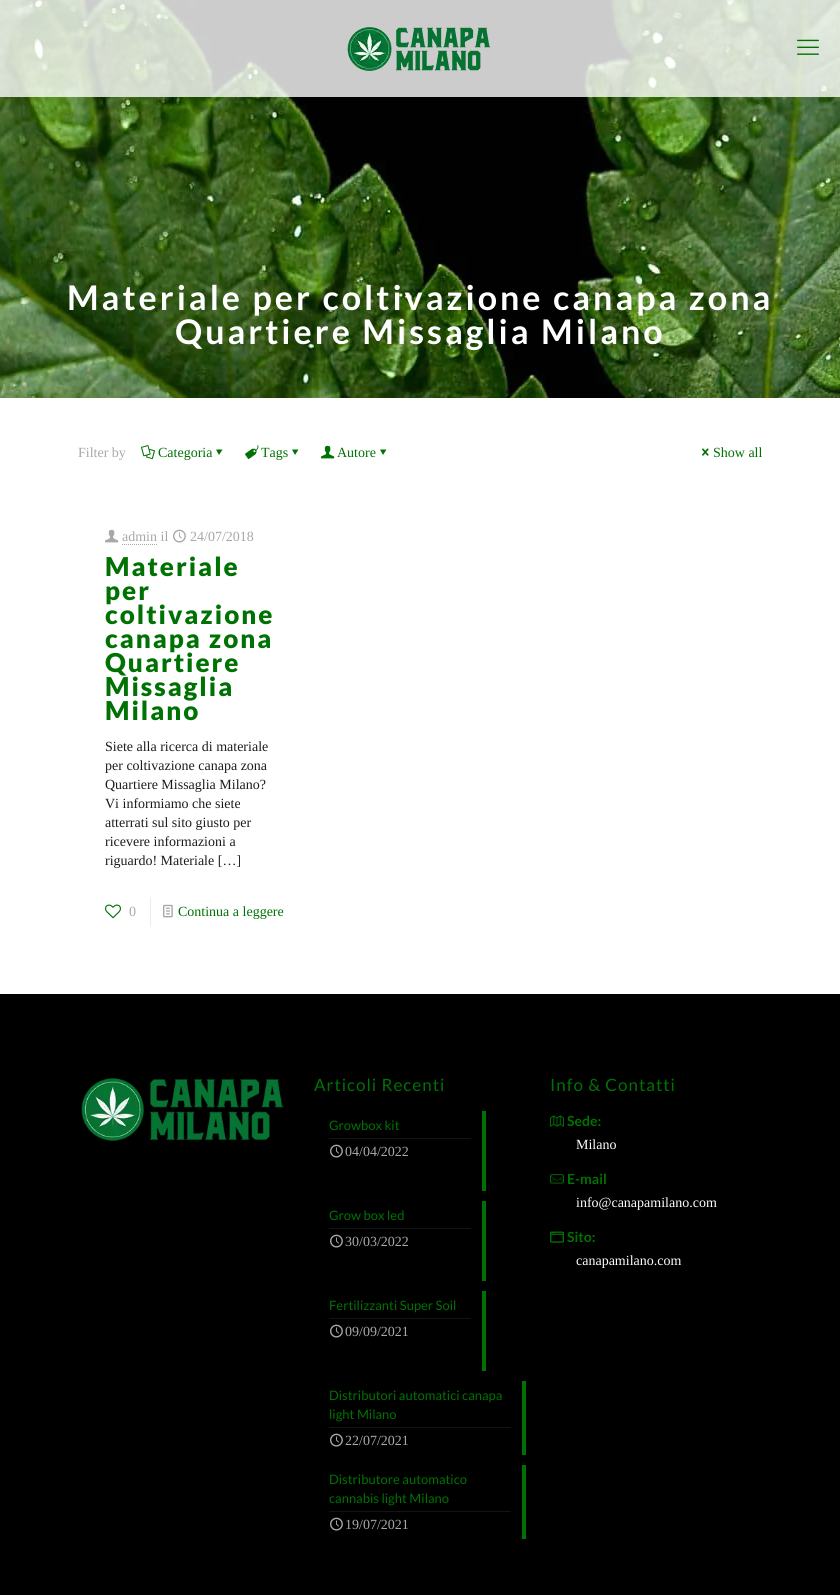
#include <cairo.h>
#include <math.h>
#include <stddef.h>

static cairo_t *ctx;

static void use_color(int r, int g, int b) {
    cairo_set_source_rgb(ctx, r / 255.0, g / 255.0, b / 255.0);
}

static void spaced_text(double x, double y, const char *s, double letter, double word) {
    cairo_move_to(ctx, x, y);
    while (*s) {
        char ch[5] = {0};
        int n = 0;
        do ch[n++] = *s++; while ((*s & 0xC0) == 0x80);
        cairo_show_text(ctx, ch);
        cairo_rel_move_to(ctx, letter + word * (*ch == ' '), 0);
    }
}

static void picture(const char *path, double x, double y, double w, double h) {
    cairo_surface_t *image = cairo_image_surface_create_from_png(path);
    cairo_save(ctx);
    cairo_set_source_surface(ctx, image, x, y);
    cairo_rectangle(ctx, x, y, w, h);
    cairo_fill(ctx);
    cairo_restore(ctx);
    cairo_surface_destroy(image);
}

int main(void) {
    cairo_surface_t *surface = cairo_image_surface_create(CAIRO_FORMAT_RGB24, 840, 1595);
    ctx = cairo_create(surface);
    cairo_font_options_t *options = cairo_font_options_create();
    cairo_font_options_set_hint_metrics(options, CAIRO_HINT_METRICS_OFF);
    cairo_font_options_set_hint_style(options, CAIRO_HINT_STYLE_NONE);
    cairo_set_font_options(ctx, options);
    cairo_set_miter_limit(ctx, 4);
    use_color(255, 255, 255);
    cairo_paint(ctx);
    picture("img3.png", 0, 0, 840, 398);
    cairo_set_source_rgba(ctx, 1, 1, 1, 0.8);
    cairo_rectangle(ctx, 0, 0, 840, 97);
    cairo_fill(ctx);
    picture("img1.png", 347, 27, 144, 44);
    picture("img2.png", 797, 39, 22, 16);
    cairo_select_font_face(ctx, "Lato", CAIRO_FONT_SLANT_NORMAL, CAIRO_FONT_WEIGHT_BOLD);
    cairo_set_font_size(ctx, 34);
    use_color(255, 255, 255);
    spaced_text(67, 310, "Materiale per coltivazione canapa zona", 3, 0);
    spaced_text(175, 344, "Quartiere Missaglia Milano", 3, 0);
    cairo_select_font_face(ctx, "Liberation Serif", CAIRO_FONT_SLANT_NORMAL, CAIRO_FONT_WEIGHT_NORMAL);
    cairo_set_font_size(ctx, 14);
    use_color(168, 168, 168);
    cairo_move_to(ctx, 78, 457);
    cairo_show_text(ctx, "Filter by");
    picture("img4.png", 141, 445, 14, 15);
    use_color(0, 114, 3);
    cairo_move_to(ctx, 158, 457);
    cairo_show_text(ctx, "Categoria");
    cairo_new_path(ctx);
    cairo_move_to(ctx, 222.5, 449.5);
    cairo_line_to(ctx, 219, 455);
    cairo_line_to(ctx, 216, 449.5);
    cairo_close_path(ctx);
    cairo_fill(ctx);
    picture("img5.png", 245, 445, 14, 14);
    cairo_move_to(ctx, 261, 457);
    cairo_show_text(ctx, "Tags");
    cairo_new_path(ctx);
    cairo_move_to(ctx, 298.5, 449.5);
    cairo_line_to(ctx, 295, 455);
    cairo_line_to(ctx, 292, 449.5);
    cairo_close_path(ctx);
    cairo_fill(ctx);
    picture("img6.png", 321, 445, 14, 14);
    cairo_move_to(ctx, 337, 457);
    cairo_show_text(ctx, "Autore");
    cairo_new_path(ctx);
    cairo_move_to(ctx, 386.5, 449.5);
    cairo_line_to(ctx, 383, 455);
    cairo_line_to(ctx, 380, 449.5);
    cairo_close_path(ctx);
    cairo_fill(ctx);
    picture("img7.png", 702, 448, 7, 8);
    cairo_move_to(ctx, 713, 457);
    cairo_show_text(ctx, "Show all");
    picture("img8.png", 105, 529, 14, 14);
    use_color(168, 168, 168);
    cairo_move_to(ctx, 122, 541);
    cairo_show_text(ctx, "admin il");
    cairo_new_path(ctx);
    cairo_move_to(ctx, 122, 544.5);
    cairo_line_to(ctx, 157, 544.5);
    cairo_set_line_width(ctx, 1);
    cairo_set_dash(ctx, (double[]){1, 1}, 2, 0);
    cairo_stroke(ctx);
    picture("img9.png", 173, 529, 13, 14);
    cairo_move_to(ctx, 190, 541);
    cairo_show_text(ctx, "24/07/2018");
    cairo_select_font_face(ctx, "Lato Black", CAIRO_FONT_SLANT_NORMAL, CAIRO_FONT_WEIGHT_NORMAL);
    cairo_set_font_size(ctx, 26);
    use_color(0, 114, 3);
    spaced_text(105, 576, "Materiale", 2, 0);
    spaced_text(105, 600, "per", 2, 0);
    spaced_text(105, 624, "coltivazione", 2, 0);
    spaced_text(105, 648, "canapa zona", 2, 0);
    spaced_text(105, 672, "Quartiere", 2, 0);
    spaced_text(105, 696, "Missaglia", 2, 0);
    spaced_text(105, 720, "Milano", 2, 0);
    cairo_select_font_face(ctx, "Liberation Serif", CAIRO_FONT_SLANT_NORMAL, CAIRO_FONT_WEIGHT_NORMAL);
    cairo_set_font_size(ctx, 14);
    use_color(28, 28, 28);
    cairo_move_to(ctx, 105, 751);
    cairo_show_text(ctx, "Siete alla ricerca di materiale");
    cairo_move_to(ctx, 105, 770);
    cairo_show_text(ctx, "per coltivazione canapa zona");
    cairo_move_to(ctx, 105, 789);
    cairo_show_text(ctx, "Quartiere Missaglia Milano?");
    cairo_move_to(ctx, 105, 808);
    cairo_show_text(ctx, "Vi informiamo che siete");
    cairo_move_to(ctx, 105, 827);
    cairo_show_text(ctx, "atterrati sul sito giusto per");
    cairo_move_to(ctx, 105, 846);
    cairo_show_text(ctx, "ricevere informazioni a");
    cairo_move_to(ctx, 105, 865);
    cairo_show_text(ctx, "riguardo! Materiale […]");
    picture("img10.png", 105, 904, 16, 15);
    use_color(168, 168, 168);
    cairo_move_to(ctx, 129, 916);
    cairo_show_text(ctx, "0");
    use_color(235, 235, 235);
    cairo_rectangle(ctx, 150, 897, 1, 30);
    cairo_fill(ctx);
    picture("img11.png", 163, 904, 10, 14);
    use_color(0, 114, 3);
    cairo_move_to(ctx, 178, 916);
    cairo_show_text(ctx, "Continua a leggere");
    use_color(0, 0, 0);
    cairo_rectangle(ctx, 0, 994, 840, 601);
    cairo_fill(ctx);
    picture("img12.png", 81, 1078, 203, 63);
    cairo_select_font_face(ctx, "Lato", CAIRO_FONT_SLANT_NORMAL, CAIRO_FONT_WEIGHT_NORMAL);
    cairo_set_font_size(ctx, 17);
    use_color(0, 114, 3);
    spaced_text(314, 1091, "Articoli Recenti", 1, 0);
    use_color(20, 20, 20);
    cairo_rectangle(ctx, 329, 1138, 142, 1);
    cairo_fill(ctx);
    cairo_set_font_size(ctx, 13);
    use_color(0, 114, 3);
    cairo_move_to(ctx, 329, 1130);
    cairo_show_text(ctx, "Growbox kit");
    cairo_rectangle(ctx, 482, 1111, 4, 80);
    cairo_fill(ctx);
    picture("img13.png", 330, 1144, 13, 14);
    cairo_select_font_face(ctx, "Liberation Serif", CAIRO_FONT_SLANT_NORMAL, CAIRO_FONT_WEIGHT_NORMAL);
    cairo_set_font_size(ctx, 14);
    use_color(168, 168, 168);
    cairo_move_to(ctx, 345, 1156);
    cairo_show_text(ctx, "04/04/2022");
    use_color(20, 20, 20);
    cairo_rectangle(ctx, 329, 1228, 142, 1);
    cairo_fill(ctx);
    cairo_select_font_face(ctx, "Lato", CAIRO_FONT_SLANT_NORMAL, CAIRO_FONT_WEIGHT_NORMAL);
    cairo_set_font_size(ctx, 13);
    use_color(0, 114, 3);
    cairo_move_to(ctx, 329, 1220);
    cairo_show_text(ctx, "Grow box led");
    cairo_rectangle(ctx, 482, 1201, 4, 80);
    cairo_fill(ctx);
    picture("img13.png", 330, 1234, 13, 14);
    cairo_select_font_face(ctx, "Liberation Serif", CAIRO_FONT_SLANT_NORMAL, CAIRO_FONT_WEIGHT_NORMAL);
    cairo_set_font_size(ctx, 14);
    use_color(168, 168, 168);
    cairo_move_to(ctx, 345, 1246);
    cairo_show_text(ctx, "30/03/2022");
    use_color(20, 20, 20);
    cairo_rectangle(ctx, 329, 1318, 142, 1);
    cairo_fill(ctx);
    cairo_select_font_face(ctx, "Lato", CAIRO_FONT_SLANT_NORMAL, CAIRO_FONT_WEIGHT_NORMAL);
    cairo_set_font_size(ctx, 13);
    use_color(0, 114, 3);
    cairo_move_to(ctx, 329, 1310);
    cairo_show_text(ctx, "Fertilizzanti Super Soil");
    cairo_rectangle(ctx, 482, 1291, 4, 80);
    cairo_fill(ctx);
    picture("img13.png", 330, 1324, 13, 14);
    cairo_select_font_face(ctx, "Liberation Serif", CAIRO_FONT_SLANT_NORMAL, CAIRO_FONT_WEIGHT_NORMAL);
    cairo_set_font_size(ctx, 14);
    use_color(168, 168, 168);
    cairo_move_to(ctx, 345, 1336);
    cairo_show_text(ctx, "09/09/2021");
    use_color(20, 20, 20);
    cairo_rectangle(ctx, 329, 1427, 182, 1);
    cairo_fill(ctx);
    cairo_select_font_face(ctx, "Lato", CAIRO_FONT_SLANT_NORMAL, CAIRO_FONT_WEIGHT_NORMAL);
    cairo_set_font_size(ctx, 13);
    use_color(0, 114, 3);
    cairo_move_to(ctx, 329, 1400);
    cairo_show_text(ctx, "Distributori automatici canapa");
    cairo_move_to(ctx, 329, 1419);
    cairo_show_text(ctx, "light Milano");
    cairo_rectangle(ctx, 522, 1381, 4, 74);
    cairo_fill(ctx);
    picture("img13.png", 330, 1433, 13, 14);
    cairo_select_font_face(ctx, "Liberation Serif", CAIRO_FONT_SLANT_NORMAL, CAIRO_FONT_WEIGHT_NORMAL);
    cairo_set_font_size(ctx, 14);
    use_color(168, 168, 168);
    cairo_move_to(ctx, 345, 1445);
    cairo_show_text(ctx, "22/07/2021");
    use_color(20, 20, 20);
    cairo_rectangle(ctx, 329, 1511, 182, 1);
    cairo_fill(ctx);
    cairo_select_font_face(ctx, "Lato", CAIRO_FONT_SLANT_NORMAL, CAIRO_FONT_WEIGHT_NORMAL);
    cairo_set_font_size(ctx, 13);
    use_color(0, 114, 3);
    cairo_move_to(ctx, 329, 1484);
    cairo_show_text(ctx, "Distributore automatico");
    cairo_move_to(ctx, 329, 1503);
    cairo_show_text(ctx, "cannabis light Milano");
    cairo_rectangle(ctx, 522, 1465, 4, 74);
    cairo_fill(ctx);
    picture("img13.png", 330, 1517, 13, 14);
    cairo_select_font_face(ctx, "Liberation Serif", CAIRO_FONT_SLANT_NORMAL, CAIRO_FONT_WEIGHT_NORMAL);
    cairo_set_font_size(ctx, 14);
    use_color(168, 168, 168);
    cairo_move_to(ctx, 345, 1529);
    cairo_show_text(ctx, "19/07/2021");
    cairo_select_font_face(ctx, "Lato", CAIRO_FONT_SLANT_NORMAL, CAIRO_FONT_WEIGHT_NORMAL);
    cairo_set_font_size(ctx, 17);
    use_color(0, 114, 3);
    spaced_text(550, 1091, "Info & Contatti", 1, 0);
    picture("img14.png", 550, 1115, 14, 12);
    cairo_select_font_face(ctx, "Lato", CAIRO_FONT_SLANT_NORMAL, CAIRO_FONT_WEIGHT_BOLD);
    cairo_set_font_size(ctx, 14);
    cairo_move_to(ctx, 567, 1126);
    cairo_show_text(ctx, "Sede:");
    cairo_select_font_face(ctx, "Liberation Serif", CAIRO_FONT_SLANT_NORMAL, CAIRO_FONT_WEIGHT_NORMAL);
    use_color(255, 255, 255);
    cairo_move_to(ctx, 576, 1149);
    cairo_show_text(ctx, "Milano");
    picture("img15.png", 550, 1174, 14, 10);
    cairo_select_font_face(ctx, "Lato", CAIRO_FONT_SLANT_NORMAL, CAIRO_FONT_WEIGHT_BOLD);
    use_color(0, 114, 3);
    cairo_move_to(ctx, 567, 1184);
    cairo_show_text(ctx, "E-mail");
    cairo_select_font_face(ctx, "Liberation Serif", CAIRO_FONT_SLANT_NORMAL, CAIRO_FONT_WEIGHT_NORMAL);
    use_color(255, 255, 255);
    cairo_move_to(ctx, 576, 1207);
    cairo_show_text(ctx, "info@canapamilano.com");
    picture("img16.png", 550, 1231, 14, 12);
    cairo_select_font_face(ctx, "Lato", CAIRO_FONT_SLANT_NORMAL, CAIRO_FONT_WEIGHT_BOLD);
    use_color(0, 114, 3);
    cairo_move_to(ctx, 567, 1242);
    cairo_show_text(ctx, "Sito:");
    cairo_select_font_face(ctx, "Liberation Serif", CAIRO_FONT_SLANT_NORMAL, CAIRO_FONT_WEIGHT_NORMAL);
    use_color(255, 255, 255);
    cairo_move_to(ctx, 576, 1265);
    cairo_show_text(ctx, "canapamilano.com");
    cairo_surface_write_to_png(surface, "result.png");
    cairo_font_options_destroy(options);
    cairo_destroy(ctx);
    cairo_surface_destroy(surface);
    return 0;
}
